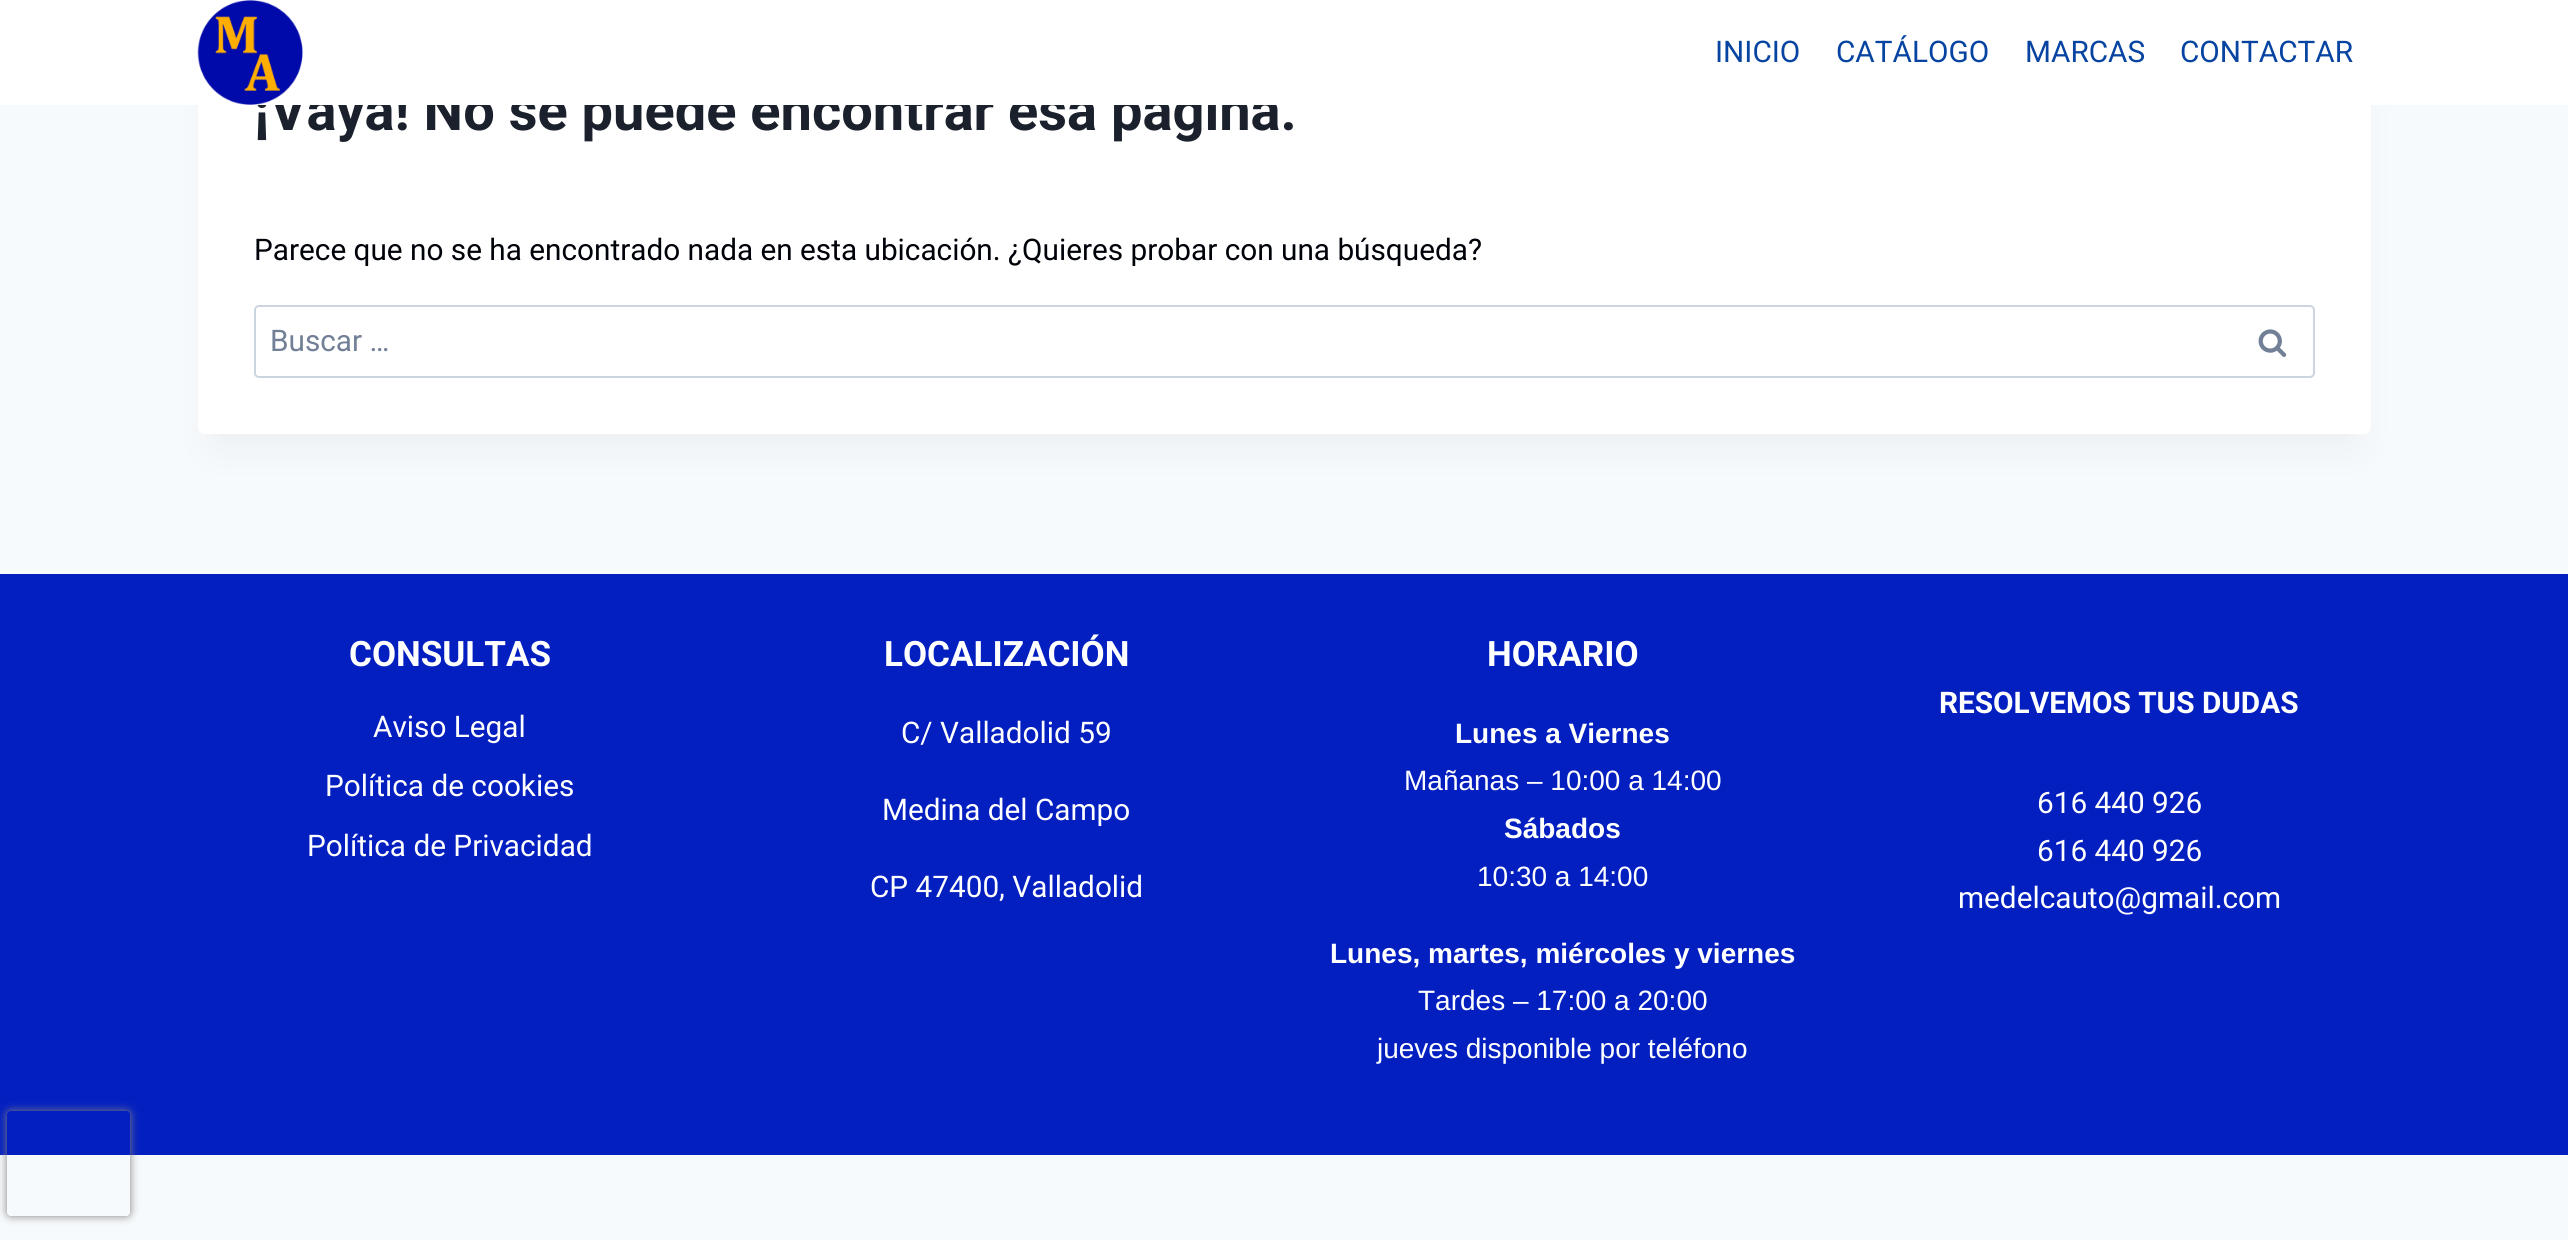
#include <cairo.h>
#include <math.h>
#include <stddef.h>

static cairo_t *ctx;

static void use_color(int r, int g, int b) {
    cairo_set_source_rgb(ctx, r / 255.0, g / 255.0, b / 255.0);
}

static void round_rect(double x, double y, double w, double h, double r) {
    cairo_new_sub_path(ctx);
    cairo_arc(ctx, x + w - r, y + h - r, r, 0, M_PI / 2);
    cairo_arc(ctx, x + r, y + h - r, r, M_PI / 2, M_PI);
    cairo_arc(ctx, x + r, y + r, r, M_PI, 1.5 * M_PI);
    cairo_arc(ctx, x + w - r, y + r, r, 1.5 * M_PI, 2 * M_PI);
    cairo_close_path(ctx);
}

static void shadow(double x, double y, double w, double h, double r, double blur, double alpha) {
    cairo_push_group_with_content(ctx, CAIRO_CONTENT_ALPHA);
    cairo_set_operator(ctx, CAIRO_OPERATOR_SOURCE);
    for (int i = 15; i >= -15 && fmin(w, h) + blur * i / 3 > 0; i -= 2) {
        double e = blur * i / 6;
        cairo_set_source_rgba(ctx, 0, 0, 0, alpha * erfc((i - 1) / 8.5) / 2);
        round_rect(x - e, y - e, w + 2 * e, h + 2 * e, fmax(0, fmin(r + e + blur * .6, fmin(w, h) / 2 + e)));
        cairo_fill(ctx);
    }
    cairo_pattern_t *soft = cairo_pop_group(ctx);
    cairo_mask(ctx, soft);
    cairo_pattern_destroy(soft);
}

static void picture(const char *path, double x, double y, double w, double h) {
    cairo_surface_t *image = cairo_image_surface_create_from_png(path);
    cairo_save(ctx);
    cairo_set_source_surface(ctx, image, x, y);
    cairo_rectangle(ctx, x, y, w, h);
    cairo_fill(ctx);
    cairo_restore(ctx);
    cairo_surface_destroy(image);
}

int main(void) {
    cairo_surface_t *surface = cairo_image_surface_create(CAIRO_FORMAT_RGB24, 2568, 1240);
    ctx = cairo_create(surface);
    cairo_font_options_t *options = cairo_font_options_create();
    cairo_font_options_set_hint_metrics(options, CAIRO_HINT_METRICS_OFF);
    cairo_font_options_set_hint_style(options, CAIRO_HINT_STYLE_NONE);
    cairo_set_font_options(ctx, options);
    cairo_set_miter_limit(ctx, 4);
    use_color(247, 250, 252);
    cairo_paint(ctx);
    use_color(0, 0, 0);
    shadow(215, 56, 2139, 387, 0, 22, 0.05);
    use_color(255, 255, 255);
    round_rect(198, 12, 2173, 422, 7);
    cairo_fill(ctx);
    cairo_select_font_face(ctx, "Roboto", CAIRO_FONT_SLANT_NORMAL, CAIRO_FONT_WEIGHT_BOLD);
    cairo_set_font_size(ctx, 56);
    use_color(26, 32, 44);
    cairo_move_to(ctx, 254, 130);
    cairo_show_text(ctx, "¡Vaya! No se puede encontrar esa página.");
    use_color(255, 255, 255);
    cairo_rectangle(ctx, 0, 0, 2568, 105);
    cairo_fill(ctx);
    picture("img1.png", 197, 0, 106, 105);
    cairo_select_font_face(ctx, "Roboto", CAIRO_FONT_SLANT_NORMAL, CAIRO_FONT_WEIGHT_NORMAL);
    cairo_set_font_size(ctx, 29.75);
    use_color(7, 68, 162);
    cairo_move_to(ctx, 1715, 62);
    cairo_show_text(ctx, "INICIO");
    cairo_move_to(ctx, 1836, 62);
    cairo_show_text(ctx, "CATÁLOGO");
    cairo_move_to(ctx, 2025, 62);
    cairo_show_text(ctx, "MARCAS");
    cairo_move_to(ctx, 2180, 62);
    cairo_show_text(ctx, "CONTACTAR");
    use_color(0, 2, 9);
    cairo_move_to(ctx, 254, 260);
    cairo_show_text(ctx, "Parece que no se ha encontrado nada en esta ubicación. ¿Quieres probar con una búsqueda?");
    round_rect(255, 306, 2059, 71, 4);
    use_color(203, 213, 224);
    cairo_stroke(ctx);
    use_color(113, 128, 150);
    cairo_move_to(ctx, 270, 351);
    cairo_show_text(ctx, "Buscar …");
    picture("img2.png", 2258, 329, 29, 28);
    use_color(3, 31, 192);
    cairo_rectangle(ctx, 0, 574, 2568, 581);
    cairo_fill(ctx);
    cairo_select_font_face(ctx, "Roboto", CAIRO_FONT_SLANT_NORMAL, CAIRO_FONT_WEIGHT_BOLD);
    cairo_set_font_size(ctx, 35);
    use_color(255, 255, 255);
    cairo_move_to(ctx, 349, 666);
    cairo_show_text(ctx, "CONSULTAS");
    cairo_select_font_face(ctx, "Roboto", CAIRO_FONT_SLANT_NORMAL, CAIRO_FONT_WEIGHT_NORMAL);
    cairo_set_font_size(ctx, 29.75);
    cairo_move_to(ctx, 373, 737);
    cairo_show_text(ctx, "Aviso Legal");
    cairo_move_to(ctx, 325, 796);
    cairo_show_text(ctx, "Política de cookies");
    cairo_move_to(ctx, 307, 856);
    cairo_show_text(ctx, "Política de Privacidad");
    cairo_select_font_face(ctx, "Roboto", CAIRO_FONT_SLANT_NORMAL, CAIRO_FONT_WEIGHT_BOLD);
    cairo_set_font_size(ctx, 35);
    cairo_move_to(ctx, 884, 666);
    cairo_show_text(ctx, "LOCALIZACIÓN");
    cairo_select_font_face(ctx, "Roboto", CAIRO_FONT_SLANT_NORMAL, CAIRO_FONT_WEIGHT_NORMAL);
    cairo_set_font_size(ctx, 29.75);
    cairo_move_to(ctx, 901, 743);
    cairo_show_text(ctx, "C/ Valladolid 59");
    cairo_move_to(ctx, 882, 820);
    cairo_show_text(ctx, "Medina del Campo");
    cairo_move_to(ctx, 870, 897);
    cairo_show_text(ctx, "CP 47400, Valladolid");
    cairo_select_font_face(ctx, "Roboto", CAIRO_FONT_SLANT_NORMAL, CAIRO_FONT_WEIGHT_BOLD);
    cairo_set_font_size(ctx, 35);
    cairo_move_to(ctx, 1487, 666);
    cairo_show_text(ctx, "HORARIO");
    cairo_select_font_face(ctx, "Liberation Sans", CAIRO_FONT_SLANT_NORMAL, CAIRO_FONT_WEIGHT_BOLD);
    cairo_set_font_size(ctx, 28);
    cairo_move_to(ctx, 1455, 743);
    cairo_show_text(ctx, "Lunes a Viernes");
    cairo_select_font_face(ctx, "Liberation Sans", CAIRO_FONT_SLANT_NORMAL, CAIRO_FONT_WEIGHT_NORMAL);
    cairo_move_to(ctx, 1404, 790);
    cairo_show_text(ctx, "Mañanas – 10:00 a 14:00");
    cairo_select_font_face(ctx, "Liberation Sans", CAIRO_FONT_SLANT_NORMAL, CAIRO_FONT_WEIGHT_BOLD);
    cairo_move_to(ctx, 1504, 838);
    cairo_show_text(ctx, "Sábados");
    cairo_select_font_face(ctx, "Liberation Sans", CAIRO_FONT_SLANT_NORMAL, CAIRO_FONT_WEIGHT_NORMAL);
    cairo_move_to(ctx, 1477, 886);
    cairo_show_text(ctx, "10:30 a 14:00");
    cairo_select_font_face(ctx, "Liberation Sans", CAIRO_FONT_SLANT_NORMAL, CAIRO_FONT_WEIGHT_BOLD);
    cairo_move_to(ctx, 1330, 963);
    cairo_show_text(ctx, "Lunes, martes, miércoles y viernes");
    cairo_select_font_face(ctx, "Liberation Sans", CAIRO_FONT_SLANT_NORMAL, CAIRO_FONT_WEIGHT_NORMAL);
    cairo_move_to(ctx, 1418, 1010);
    cairo_show_text(ctx, "Tardes – 17:00 a 20:00");
    cairo_move_to(ctx, 1377, 1058);
    cairo_show_text(ctx, "jueves disponible por teléfono");
    cairo_select_font_face(ctx, "Roboto", CAIRO_FONT_SLANT_NORMAL, CAIRO_FONT_WEIGHT_BOLD);
    cairo_set_font_size(ctx, 29.75);
    cairo_move_to(ctx, 1939, 713);
    cairo_show_text(ctx, "RESOLVEMOS TUS DUDAS");
    cairo_select_font_face(ctx, "Roboto", CAIRO_FONT_SLANT_NORMAL, CAIRO_FONT_WEIGHT_NORMAL);
    cairo_move_to(ctx, 2037, 813);
    cairo_show_text(ctx, "616 440 926");
    cairo_move_to(ctx, 2037, 861);
    cairo_show_text(ctx, "616 440 926");
    cairo_move_to(ctx, 1958, 908);
    cairo_show_text(ctx, "medelcauto@gmail.com");
    cairo_save(ctx);
    cairo_set_fill_rule(ctx, CAIRO_FILL_RULE_EVEN_ODD);
    cairo_new_path(ctx);
    cairo_move_to(ctx, 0, 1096);
    cairo_line_to(ctx, 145, 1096);
    cairo_line_to(ctx, 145, 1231);
    cairo_line_to(ctx, 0, 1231);
    cairo_close_path(ctx);
    cairo_move_to(ctx, 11, 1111);
    cairo_line_to(ctx, 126, 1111);
    cairo_curve_to(ctx, 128, 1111, 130, 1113, 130, 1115);
    cairo_line_to(ctx, 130, 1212);
    cairo_curve_to(ctx, 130, 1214, 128, 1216, 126, 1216);
    cairo_line_to(ctx, 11, 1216);
    cairo_curve_to(ctx, 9, 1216, 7, 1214, 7, 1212);
    cairo_line_to(ctx, 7, 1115);
    cairo_curve_to(ctx, 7, 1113, 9, 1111, 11, 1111);
    cairo_close_path(ctx);
    cairo_clip(ctx);
    use_color(128, 128, 128);
    shadow(7, 1111, 123, 105, 4, 4.5, 1);
    cairo_restore(ctx);
    cairo_surface_write_to_png(surface, "result.png");
    cairo_font_options_destroy(options);
    cairo_destroy(ctx);
    cairo_surface_destroy(surface);
    return 0;
}
